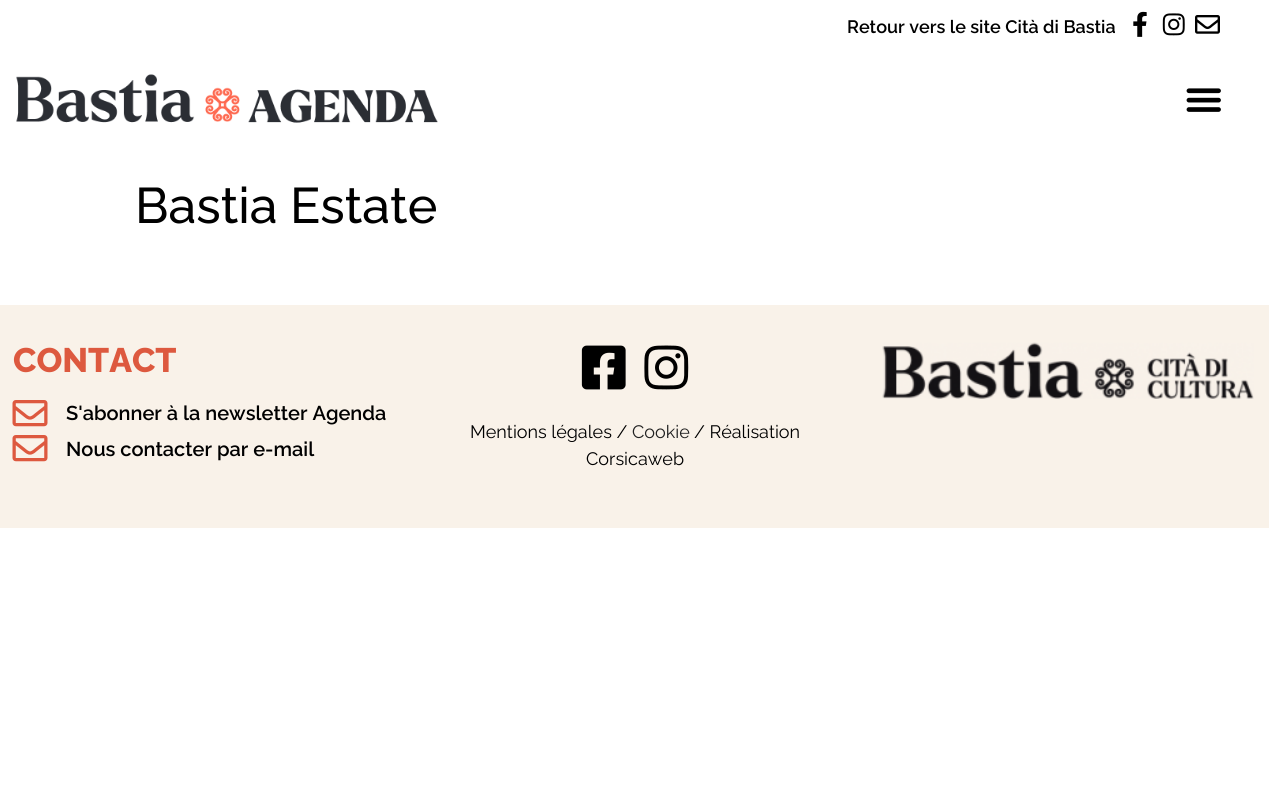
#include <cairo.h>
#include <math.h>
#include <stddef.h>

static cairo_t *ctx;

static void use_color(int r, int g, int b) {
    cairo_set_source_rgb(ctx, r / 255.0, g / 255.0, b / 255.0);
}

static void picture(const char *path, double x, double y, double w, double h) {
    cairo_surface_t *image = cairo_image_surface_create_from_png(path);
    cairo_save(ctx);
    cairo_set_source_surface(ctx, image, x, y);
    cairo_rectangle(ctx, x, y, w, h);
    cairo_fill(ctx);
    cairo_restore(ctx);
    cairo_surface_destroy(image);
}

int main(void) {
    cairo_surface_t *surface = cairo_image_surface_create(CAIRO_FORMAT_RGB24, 1269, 799);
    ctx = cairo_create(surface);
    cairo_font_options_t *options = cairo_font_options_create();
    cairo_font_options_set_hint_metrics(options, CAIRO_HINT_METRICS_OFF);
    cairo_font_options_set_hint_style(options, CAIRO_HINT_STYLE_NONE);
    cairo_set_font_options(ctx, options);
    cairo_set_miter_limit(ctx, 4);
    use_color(255, 255, 255);
    cairo_paint(ctx);
    cairo_select_font_face(ctx, "Raleway SemiBold", CAIRO_FONT_SLANT_NORMAL, CAIRO_FONT_WEIGHT_NORMAL);
    cairo_set_font_size(ctx, 18);
    use_color(0, 0, 0);
    cairo_move_to(ctx, 847, 33);
    cairo_show_text(ctx, "Retour vers le site Cità di Bastia");
    picture("img1.png", 1133, 11, 14, 26);
    picture("img2.png", 1162, 13, 23, 23);
    picture("img3.png", 1195, 15, 25, 19);
    picture("img4.png", 16, 74, 422, 49);
    picture("img5.png", 1186, 88, 35, 24);
    cairo_select_font_face(ctx, "Raleway Medium", CAIRO_FONT_SLANT_NORMAL, CAIRO_FONT_WEIGHT_NORMAL);
    cairo_set_font_size(ctx, 50);
    cairo_move_to(ctx, 135, 223);
    cairo_show_text(ctx, "Bastia Estate");
    use_color(249, 242, 233);
    cairo_rectangle(ctx, 0, 305, 1269, 223);
    cairo_fill(ctx);
    cairo_select_font_face(ctx, "Raleway ExtraBold", CAIRO_FONT_SLANT_NORMAL, CAIRO_FONT_WEIGHT_NORMAL);
    cairo_set_font_size(ctx, 34);
    use_color(221, 89, 63);
    cairo_move_to(ctx, 13, 372);
    cairo_show_text(ctx, "CONTACT");
    picture("img6.png", 12, 400, 36, 27);
    cairo_select_font_face(ctx, "Raleway SemiBold", CAIRO_FONT_SLANT_NORMAL, CAIRO_FONT_WEIGHT_NORMAL);
    cairo_set_font_size(ctx, 20);
    use_color(0, 0, 0);
    cairo_move_to(ctx, 66, 420);
    cairo_show_text(ctx, "S'abonner à la newsletter Agenda");
    picture("img6.png", 12, 435, 36, 27);
    cairo_move_to(ctx, 66, 456);
    cairo_show_text(ctx, "Nous contacter par e-mail");
    picture("img7.png", 581, 345, 45, 45);
    picture("img8.png", 644, 345, 45, 45);
    cairo_select_font_face(ctx, "Raleway", CAIRO_FONT_SLANT_NORMAL, CAIRO_FONT_WEIGHT_NORMAL);
    cairo_set_font_size(ctx, 18);
    cairo_move_to(ctx, 470, 438);
    cairo_show_text(ctx, "Mentions légales /");
    use_color(33, 33, 33);
    cairo_move_to(ctx, 632, 438);
    cairo_show_text(ctx, "Cookie");
    use_color(0, 0, 0);
    cairo_move_to(ctx, 694, 438);
    cairo_show_text(ctx, "/ Réalisation");
    cairo_move_to(ctx, 586, 465);
    cairo_show_text(ctx, "Corsicaweb");
    picture("img9.png", 882, 342, 372, 57);
    cairo_surface_write_to_png(surface, "result.png");
    cairo_font_options_destroy(options);
    cairo_destroy(ctx);
    cairo_surface_destroy(surface);
    return 0;
}
